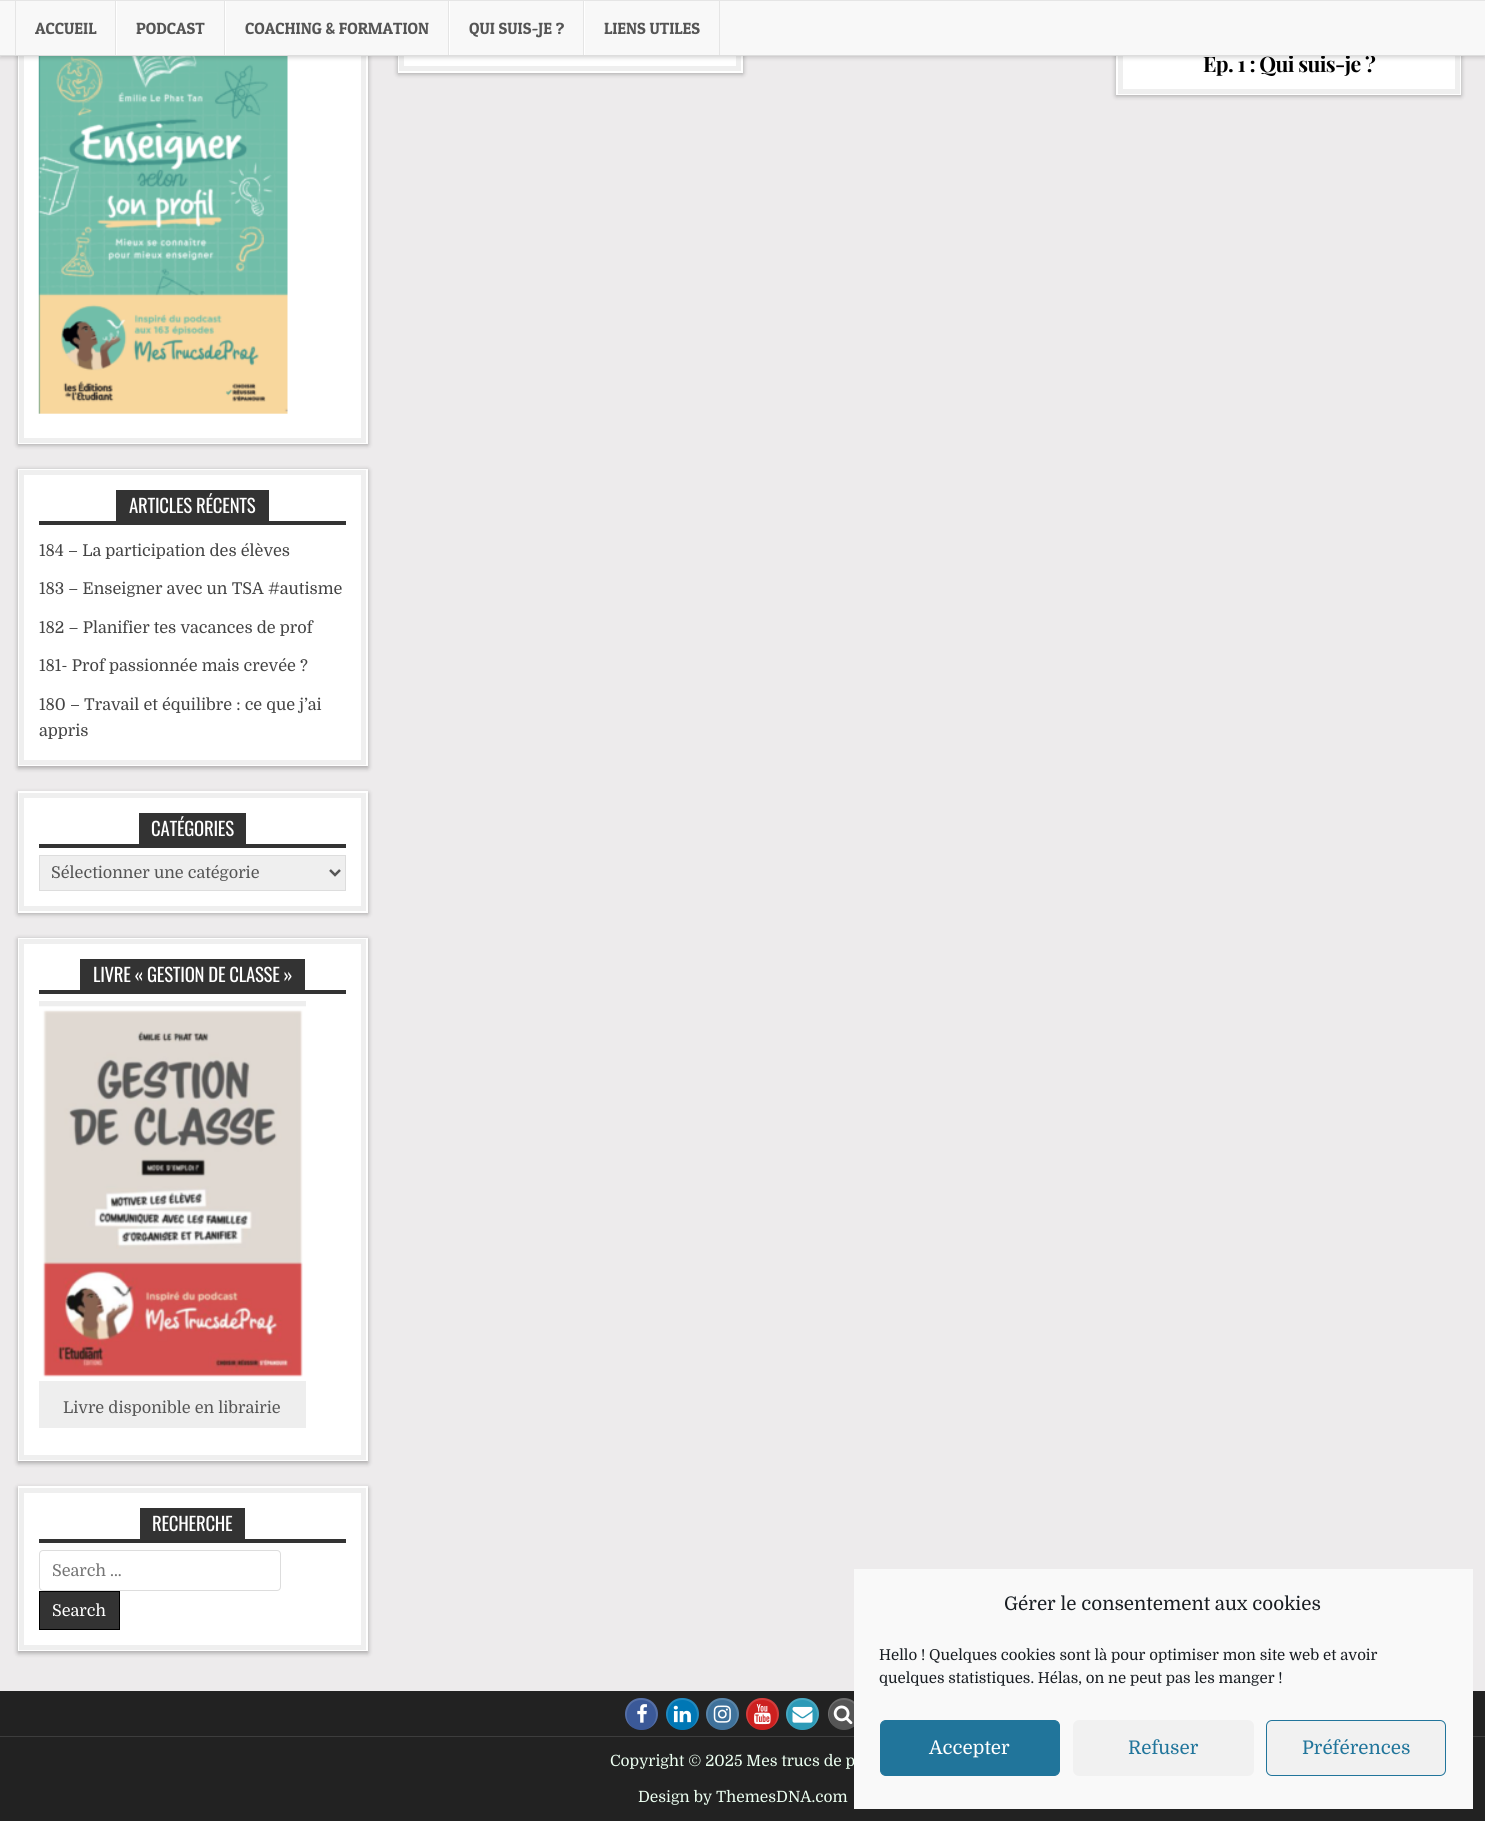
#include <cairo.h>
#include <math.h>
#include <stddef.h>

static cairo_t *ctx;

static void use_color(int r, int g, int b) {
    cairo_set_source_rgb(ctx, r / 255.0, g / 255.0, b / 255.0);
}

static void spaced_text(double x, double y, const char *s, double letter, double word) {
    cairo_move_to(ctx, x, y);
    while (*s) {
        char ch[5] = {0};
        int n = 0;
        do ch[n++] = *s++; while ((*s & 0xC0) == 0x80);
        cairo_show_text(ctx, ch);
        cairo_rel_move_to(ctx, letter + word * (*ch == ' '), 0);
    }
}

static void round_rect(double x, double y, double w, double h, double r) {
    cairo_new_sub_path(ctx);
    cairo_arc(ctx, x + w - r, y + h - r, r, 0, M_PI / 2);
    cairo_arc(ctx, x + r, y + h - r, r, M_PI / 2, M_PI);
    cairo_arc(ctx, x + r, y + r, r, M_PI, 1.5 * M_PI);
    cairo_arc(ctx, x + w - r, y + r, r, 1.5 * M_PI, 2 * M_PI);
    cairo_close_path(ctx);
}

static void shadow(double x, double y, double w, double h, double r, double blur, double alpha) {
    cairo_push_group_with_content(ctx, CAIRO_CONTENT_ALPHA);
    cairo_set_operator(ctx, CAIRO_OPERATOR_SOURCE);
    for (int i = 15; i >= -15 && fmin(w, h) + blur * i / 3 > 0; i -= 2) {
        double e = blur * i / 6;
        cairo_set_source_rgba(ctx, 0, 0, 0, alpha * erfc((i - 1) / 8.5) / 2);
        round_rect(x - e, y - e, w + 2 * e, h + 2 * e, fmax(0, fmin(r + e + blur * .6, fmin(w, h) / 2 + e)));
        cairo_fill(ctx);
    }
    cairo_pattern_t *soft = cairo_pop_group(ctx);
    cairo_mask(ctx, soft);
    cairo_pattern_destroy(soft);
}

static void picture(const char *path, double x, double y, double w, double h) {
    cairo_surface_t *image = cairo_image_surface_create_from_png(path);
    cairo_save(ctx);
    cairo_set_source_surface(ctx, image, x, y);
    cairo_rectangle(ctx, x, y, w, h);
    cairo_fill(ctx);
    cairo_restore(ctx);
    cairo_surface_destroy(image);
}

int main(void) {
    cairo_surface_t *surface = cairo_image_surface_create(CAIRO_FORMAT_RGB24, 1485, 1821);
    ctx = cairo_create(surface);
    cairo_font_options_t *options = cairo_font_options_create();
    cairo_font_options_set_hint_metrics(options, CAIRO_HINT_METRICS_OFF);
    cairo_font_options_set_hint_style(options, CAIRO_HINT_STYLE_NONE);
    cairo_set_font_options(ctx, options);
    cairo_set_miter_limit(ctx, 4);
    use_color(237, 235, 236);
    cairo_paint(ctx);
    use_color(0, 0, 0);
    shadow(398, -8, 345, 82, 0, 2.5, 0.3);
    use_color(255, 255, 255);
    cairo_rectangle(ctx, 398, 56, 345, 17);
    cairo_fill(ctx);
    cairo_rectangle(ctx, 401.5, -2.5, 337, 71);
    use_color(239, 239, 239);
    cairo_set_line_width(ctx, 5);
    cairo_stroke(ctx);
    use_color(0, 0, 0);
    shadow(1116, -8, 345, 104, 0, 2.5, 0.3);
    use_color(255, 255, 255);
    cairo_rectangle(ctx, 1116, 56, 345, 39);
    cairo_fill(ctx);
    cairo_rectangle(ctx, 1120.5, -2.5, 337, 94);
    use_color(239, 239, 239);
    cairo_stroke(ctx);
    use_color(0, 0, 0);
    shadow(18, -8, 350, 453, 0, 2.5, 0.3);
    use_color(255, 255, 255);
    cairo_rectangle(ctx, 18, 56, 350, 388);
    cairo_fill(ctx);
    cairo_rectangle(ctx, 21.5, -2.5, 342, 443);
    use_color(239, 239, 239);
    cairo_stroke(ctx);
    picture("img1.png", 38, 56, 250, 358);
    use_color(0, 0, 0);
    shadow(0, 1, 1485, 57, 0, 2, 0.15);
    cairo_select_font_face(ctx, "Playfair Display", CAIRO_FONT_SLANT_NORMAL, CAIRO_FONT_WEIGHT_BOLD);
    cairo_set_font_size(ctx, 21.25);
    use_color(0, 0, 0);
    spaced_text(1203, 72, "Ép. 1 : Qui suis-je ?", -0.6, 0);
    use_color(248, 248, 248);
    cairo_rectangle(ctx, 0, 1, 1485, 54);
    cairo_fill(ctx);
    use_color(229, 229, 229);
    cairo_rectangle(ctx, 0, 0, 1485, 1);
    cairo_fill(ctx);
    use_color(221, 221, 221);
    cairo_rectangle(ctx, 0, 55, 1485, 1);
    cairo_fill(ctx);
    use_color(229, 229, 229);
    cairo_rectangle(ctx, 115, 1, 1, 54);
    cairo_fill(ctx);
    cairo_rectangle(ctx, 15, 1, 1, 54);
    cairo_fill(ctx);
    cairo_select_font_face(ctx, "Patua One", CAIRO_FONT_SLANT_NORMAL, CAIRO_FONT_WEIGHT_NORMAL);
    cairo_set_font_size(ctx, 16.25);
    use_color(85, 85, 85);
    cairo_move_to(ctx, 35, 34);
    cairo_show_text(ctx, "ACCUEIL");
    use_color(229, 229, 229);
    cairo_rectangle(ctx, 224, 1, 1, 54);
    cairo_fill(ctx);
    use_color(255, 255, 255);
    cairo_rectangle(ctx, 116, 1, 1, 54);
    cairo_fill(ctx);
    use_color(85, 85, 85);
    cairo_move_to(ctx, 136, 34);
    cairo_show_text(ctx, "PODCAST");
    use_color(229, 229, 229);
    cairo_rectangle(ctx, 448, 1, 1, 54);
    cairo_fill(ctx);
    use_color(255, 255, 255);
    cairo_rectangle(ctx, 225, 1, 1, 54);
    cairo_fill(ctx);
    use_color(85, 85, 85);
    cairo_move_to(ctx, 245, 34);
    cairo_show_text(ctx, "COACHING & FORMATION");
    use_color(229, 229, 229);
    cairo_rectangle(ctx, 583, 1, 1, 54);
    cairo_fill(ctx);
    use_color(255, 255, 255);
    cairo_rectangle(ctx, 449, 1, 1, 54);
    cairo_fill(ctx);
    use_color(85, 85, 85);
    cairo_move_to(ctx, 469, 34);
    cairo_show_text(ctx, "QUI SUIS-JE ?");
    use_color(229, 229, 229);
    cairo_rectangle(ctx, 719, 1, 1, 54);
    cairo_fill(ctx);
    use_color(255, 255, 255);
    cairo_rectangle(ctx, 584, 1, 1, 54);
    cairo_fill(ctx);
    use_color(85, 85, 85);
    cairo_move_to(ctx, 604, 34);
    cairo_show_text(ctx, "LIENS UTILES");
    use_color(0, 0, 0);
    shadow(18, 470, 350, 298, 0, 2.5, 0.3);
    use_color(255, 255, 255);
    cairo_rectangle(ctx, 18, 469, 350, 297);
    cairo_fill(ctx);
    cairo_rectangle(ctx, 21.5, 472.5, 342, 290);
    use_color(239, 239, 239);
    cairo_stroke(ctx);
    use_color(51, 51, 51);
    cairo_rectangle(ctx, 39, 521, 307, 4);
    cairo_fill(ctx);
    cairo_rectangle(ctx, 116, 490, 153, 31);
    cairo_fill(ctx);
    cairo_select_font_face(ctx, "Oswald", CAIRO_FONT_SLANT_NORMAL, CAIRO_FONT_WEIGHT_NORMAL);
    cairo_set_font_size(ctx, 18.75);
    use_color(255, 255, 255);
    spaced_text(129, 513, "ARTICLES RÉCENTS", -0.25, 0);
    cairo_select_font_face(ctx, "Domine", CAIRO_FONT_SLANT_NORMAL, CAIRO_FONT_WEIGHT_NORMAL);
    cairo_set_font_size(ctx, 16.25);
    use_color(68, 68, 68);
    cairo_move_to(ctx, 39, 556);
    cairo_show_text(ctx, "184 – La participation des élèves");
    cairo_move_to(ctx, 39, 594);
    cairo_show_text(ctx, "183 – Enseigner avec un TSA #autisme");
    cairo_move_to(ctx, 39, 633);
    cairo_show_text(ctx, "182 – Planifier tes vacances de prof");
    cairo_move_to(ctx, 39, 671);
    cairo_show_text(ctx, "181- Prof passionnée mais crevée ?");
    cairo_move_to(ctx, 39, 710);
    cairo_show_text(ctx, "180 – Travail et équilibre : ce que j’ai");
    cairo_move_to(ctx, 39, 736);
    cairo_show_text(ctx, "appris");
    use_color(0, 0, 0);
    shadow(18, 793, 350, 121, 0, 2.5, 0.3);
    use_color(255, 255, 255);
    cairo_rectangle(ctx, 18, 791, 350, 122);
    cairo_fill(ctx);
    cairo_rectangle(ctx, 21.5, 795.5, 342, 113);
    use_color(239, 239, 239);
    cairo_stroke(ctx);
    use_color(51, 51, 51);
    cairo_rectangle(ctx, 39, 844, 307, 4);
    cairo_fill(ctx);
    cairo_rectangle(ctx, 139, 813, 107, 31);
    cairo_fill(ctx);
    cairo_select_font_face(ctx, "Oswald", CAIRO_FONT_SLANT_NORMAL, CAIRO_FONT_WEIGHT_NORMAL);
    cairo_set_font_size(ctx, 18.75);
    use_color(255, 255, 255);
    spaced_text(151, 836, "CATÉGORIES", -0.25, 0);
    use_color(239, 239, 239);
    cairo_rectangle(ctx, 39.5, 855.5, 306, 35);
    cairo_fill_preserve(ctx);
    use_color(221, 221, 221);
    cairo_set_line_width(ctx, 1);
    cairo_stroke(ctx);
    cairo_new_path(ctx);
    cairo_move_to(ctx, 330, 870);
    cairo_line_to(ctx, 335, 875);
    cairo_line_to(ctx, 340, 870);
    use_color(85, 85, 85);
    cairo_set_line_width(ctx, 2.5);
    cairo_stroke(ctx);
    cairo_select_font_face(ctx, "Domine", CAIRO_FONT_SLANT_NORMAL, CAIRO_FONT_WEIGHT_NORMAL);
    cairo_set_font_size(ctx, 16.25);
    cairo_move_to(ctx, 51, 878);
    cairo_show_text(ctx, "Sélectionner une catégorie");
    use_color(0, 0, 0);
    shadow(18, 939, 350, 524, 0, 2.5, 0.3);
    use_color(255, 255, 255);
    cairo_rectangle(ctx, 18, 938, 350, 523);
    cairo_fill(ctx);
    cairo_rectangle(ctx, 21.5, 941.5, 342, 516);
    use_color(239, 239, 239);
    cairo_set_line_width(ctx, 5);
    cairo_stroke(ctx);
    use_color(51, 51, 51);
    cairo_rectangle(ctx, 39, 990, 307, 4);
    cairo_fill(ctx);
    cairo_rectangle(ctx, 80, 959, 225, 31);
    cairo_fill(ctx);
    cairo_select_font_face(ctx, "Oswald", CAIRO_FONT_SLANT_NORMAL, CAIRO_FONT_WEIGHT_NORMAL);
    cairo_set_font_size(ctx, 18.75);
    use_color(255, 255, 255);
    spaced_text(93, 982, "LIVRE « GESTION DE CLASSE »", -0.25, 0);
    use_color(238, 238, 238);
    cairo_rectangle(ctx, 39, 1001, 267, 427);
    cairo_fill(ctx);
    picture("img2.png", 39, 1006, 267, 375);
    cairo_select_font_face(ctx, "Domine", CAIRO_FONT_SLANT_NORMAL, CAIRO_FONT_WEIGHT_NORMAL);
    cairo_set_font_size(ctx, 16.25);
    use_color(85, 85, 85);
    cairo_move_to(ctx, 63, 1413);
    cairo_show_text(ctx, "Livre disponible en librairie");
    use_color(0, 0, 0);
    shadow(18, 1488, 350, 165, 0, 2.5, 0.3);
    use_color(255, 255, 255);
    cairo_rectangle(ctx, 18, 1486, 350, 165);
    cairo_fill(ctx);
    cairo_rectangle(ctx, 21.5, 1490.5, 342, 157);
    use_color(239, 239, 239);
    cairo_stroke(ctx);
    use_color(51, 51, 51);
    cairo_rectangle(ctx, 39, 1539, 307, 4);
    cairo_fill(ctx);
    cairo_rectangle(ctx, 140, 1508, 105, 31);
    cairo_fill(ctx);
    cairo_select_font_face(ctx, "Oswald", CAIRO_FONT_SLANT_NORMAL, CAIRO_FONT_WEIGHT_NORMAL);
    cairo_set_font_size(ctx, 18.75);
    use_color(255, 255, 255);
    spaced_text(152, 1531, "RECHERCHE", -0.25, 0);
    round_rect(39.5, 1550.5, 241, 40, 3.5);
    use_color(221, 221, 221);
    cairo_set_line_width(ctx, 1);
    cairo_stroke(ctx);
    cairo_select_font_face(ctx, "Domine", CAIRO_FONT_SLANT_NORMAL, CAIRO_FONT_WEIGHT_NORMAL);
    cairo_set_font_size(ctx, 16.25);
    use_color(117, 117, 117);
    cairo_move_to(ctx, 52, 1576);
    cairo_show_text(ctx, "Search …");
    use_color(51, 51, 51);
    cairo_rectangle(ctx, 39.5, 1591.5, 80, 38);
    cairo_fill_preserve(ctx);
    use_color(0, 0, 0);
    cairo_stroke(ctx);
    use_color(255, 255, 255);
    cairo_move_to(ctx, 52, 1616);
    cairo_show_text(ctx, "Search");
    use_color(34, 34, 34);
    cairo_rectangle(ctx, 0, 1691, 1485, 45);
    cairo_fill(ctx);
    use_color(85, 85, 85);
    cairo_arc(ctx, 844, 1714, 16, 0, 2 * M_PI);
    cairo_fill(ctx);
    cairo_set_source_rgba(ctx, 1, 1, 1, 0.14);
    cairo_new_path(ctx);
    cairo_move_to(ctx, 844, 1700);
    cairo_curve_to(ctx, 861, 1700, 863, 1724.5, 849, 1729);
    cairo_curve_to(ctx, 855.5, 1727, 860, 1721, 860, 1714);
    cairo_curve_to(ctx, 860, 1705, 853, 1698, 844, 1698);
    cairo_curve_to(ctx, 835, 1698, 828, 1705, 828, 1714);
    cairo_curve_to(ctx, 828, 1718.5, 830, 1723, 833.5, 1726);
    cairo_curve_to(ctx, 825, 1717.5, 828.5, 1700, 844, 1700);
    cairo_close_path(ctx);
    cairo_fill(ctx);
    use_color(34, 34, 34);
    cairo_rectangle(ctx, 0, 1737, 1485, 84);
    cairo_fill(ctx);
    use_color(61, 61, 61);
    cairo_rectangle(ctx, 0, 1736, 1485, 1);
    cairo_fill(ctx);
    use_color(249, 249, 249);
    cairo_rectangle(ctx, 854, 1569, 619, 240);
    cairo_fill(ctx);
    cairo_set_font_size(ctx, 18.75);
    use_color(25, 30, 35);
    cairo_move_to(ctx, 1004, 1610);
    cairo_show_text(ctx, "Gérer le consentement aux cookies");
    cairo_set_font_size(ctx, 15);
    cairo_move_to(ctx, 879, 1660);
    cairo_show_text(ctx, "Hello ! Quelques cookies sont là pour optimiser mon site web et avoir");
    cairo_move_to(ctx, 879, 1683);
    cairo_show_text(ctx, "quelques statistiques. Hélas, on ne peut pas les manger !");
    use_color(33, 117, 155);
    round_rect(880.5, 1720.5, 179, 55, 5.5);
    cairo_fill_preserve(ctx);
    cairo_stroke(ctx);
    cairo_set_font_size(ctx, 18.75);
    use_color(255, 255, 255);
    cairo_move_to(ctx, 929, 1754);
    cairo_show_text(ctx, "Accepter");
    use_color(241, 241, 241);
    round_rect(1073, 1720, 181, 56, 6);
    cairo_fill(ctx);
    use_color(33, 117, 155);
    cairo_move_to(ctx, 1128, 1754);
    cairo_show_text(ctx, "Refuser");
    use_color(241, 241, 241);
    round_rect(1266.5, 1720.5, 179, 55, 5.5);
    cairo_fill_preserve(ctx);
    use_color(33, 117, 155);
    cairo_stroke(ctx);
    cairo_move_to(ctx, 1302, 1754);
    cairo_show_text(ctx, "Préférences");
    use_color(59, 89, 152);
    round_rect(625, 1698, 33, 32, 16);
    cairo_fill(ctx);
    cairo_set_source_rgba(ctx, 1, 1, 1, 0.14);
    cairo_new_path(ctx);
    cairo_move_to(ctx, 641, 1700);
    cairo_curve_to(ctx, 661, 1700, 661, 1730, 641, 1730);
    cairo_curve_to(ctx, 661.5, 1730, 664, 1702, 645, 1698.5);
    cairo_curve_to(ctx, 624.5, 1694, 617, 1722.5, 636, 1729);
    cairo_curve_to(ctx, 622, 1724.5, 624, 1700, 641, 1700);
    cairo_close_path(ctx);
    cairo_fill(ctx);
    picture("img3.png", 637, 1704, 10, 19);
    use_color(0, 119, 181);
    round_rect(666, 1698, 33, 32, 16);
    cairo_fill(ctx);
    cairo_set_source_rgba(ctx, 1, 1, 1, 0.14);
    cairo_new_path(ctx);
    cairo_move_to(ctx, 682, 1700);
    cairo_curve_to(ctx, 702, 1700, 702, 1730, 682, 1730);
    cairo_curve_to(ctx, 702.5, 1730, 705, 1702, 686, 1698.5);
    cairo_curve_to(ctx, 665.5, 1694, 658, 1722.5, 677, 1729);
    cairo_curve_to(ctx, 663, 1724.5, 665, 1700, 682, 1700);
    cairo_close_path(ctx);
    cairo_fill(ctx);
    picture("img4.png", 673, 1705, 18, 18);
    use_color(63, 114, 155);
    round_rect(706, 1698, 33, 32, 16);
    cairo_fill(ctx);
    cairo_set_source_rgba(ctx, 1, 1, 1, 0.14);
    cairo_new_path(ctx);
    cairo_move_to(ctx, 722, 1700);
    cairo_curve_to(ctx, 742, 1700, 742, 1730, 722, 1730);
    cairo_curve_to(ctx, 742.5, 1730, 745, 1702, 726, 1698.5);
    cairo_curve_to(ctx, 705.5, 1694, 698, 1722.5, 717, 1729);
    cairo_curve_to(ctx, 703, 1724.5, 705, 1700, 722, 1700);
    cairo_close_path(ctx);
    cairo_fill(ctx);
    picture("img5.png", 713, 1705, 18, 18);
    use_color(205, 32, 31);
    round_rect(746, 1698, 33, 32, 16);
    cairo_fill(ctx);
    cairo_set_source_rgba(ctx, 1, 1, 1, 0.14);
    cairo_new_path(ctx);
    cairo_move_to(ctx, 762, 1700);
    cairo_curve_to(ctx, 782, 1700, 782, 1730, 762, 1730);
    cairo_curve_to(ctx, 782.5, 1730, 785, 1702, 766, 1698.5);
    cairo_curve_to(ctx, 745.5, 1694, 738, 1722.5, 757, 1729);
    cairo_curve_to(ctx, 743, 1724.5, 745, 1700, 762, 1700);
    cairo_close_path(ctx);
    cairo_fill(ctx);
    picture("img6.png", 754, 1704, 17, 21);
    use_color(44, 154, 183);
    round_rect(786, 1698, 33, 32, 16);
    cairo_fill(ctx);
    cairo_set_source_rgba(ctx, 1, 1, 1, 0.14);
    cairo_new_path(ctx);
    cairo_move_to(ctx, 802, 1700);
    cairo_curve_to(ctx, 822, 1700, 822, 1730, 802, 1730);
    cairo_curve_to(ctx, 822.5, 1730, 825, 1702, 806, 1698.5);
    cairo_curve_to(ctx, 785.5, 1694, 778, 1722.5, 797, 1729);
    cairo_curve_to(ctx, 783, 1724.5, 785, 1700, 802, 1700);
    cairo_close_path(ctx);
    cairo_fill(ctx);
    picture("img7.png", 792, 1706, 21, 17);
    picture("img8.png", 833, 1705, 20, 20);
    cairo_set_font_size(ctx, 15.5);
    use_color(236, 255, 241);
    cairo_move_to(ctx, 610, 1766);
    cairo_show_text(ctx, "Copyright © 2025 Mes trucs de p");
    cairo_move_to(ctx, 638, 1802);
    cairo_show_text(ctx, "Design by ThemesDNA.com");
    cairo_surface_write_to_png(surface, "result.png");
    cairo_font_options_destroy(options);
    cairo_destroy(ctx);
    cairo_surface_destroy(surface);
    return 0;
}
